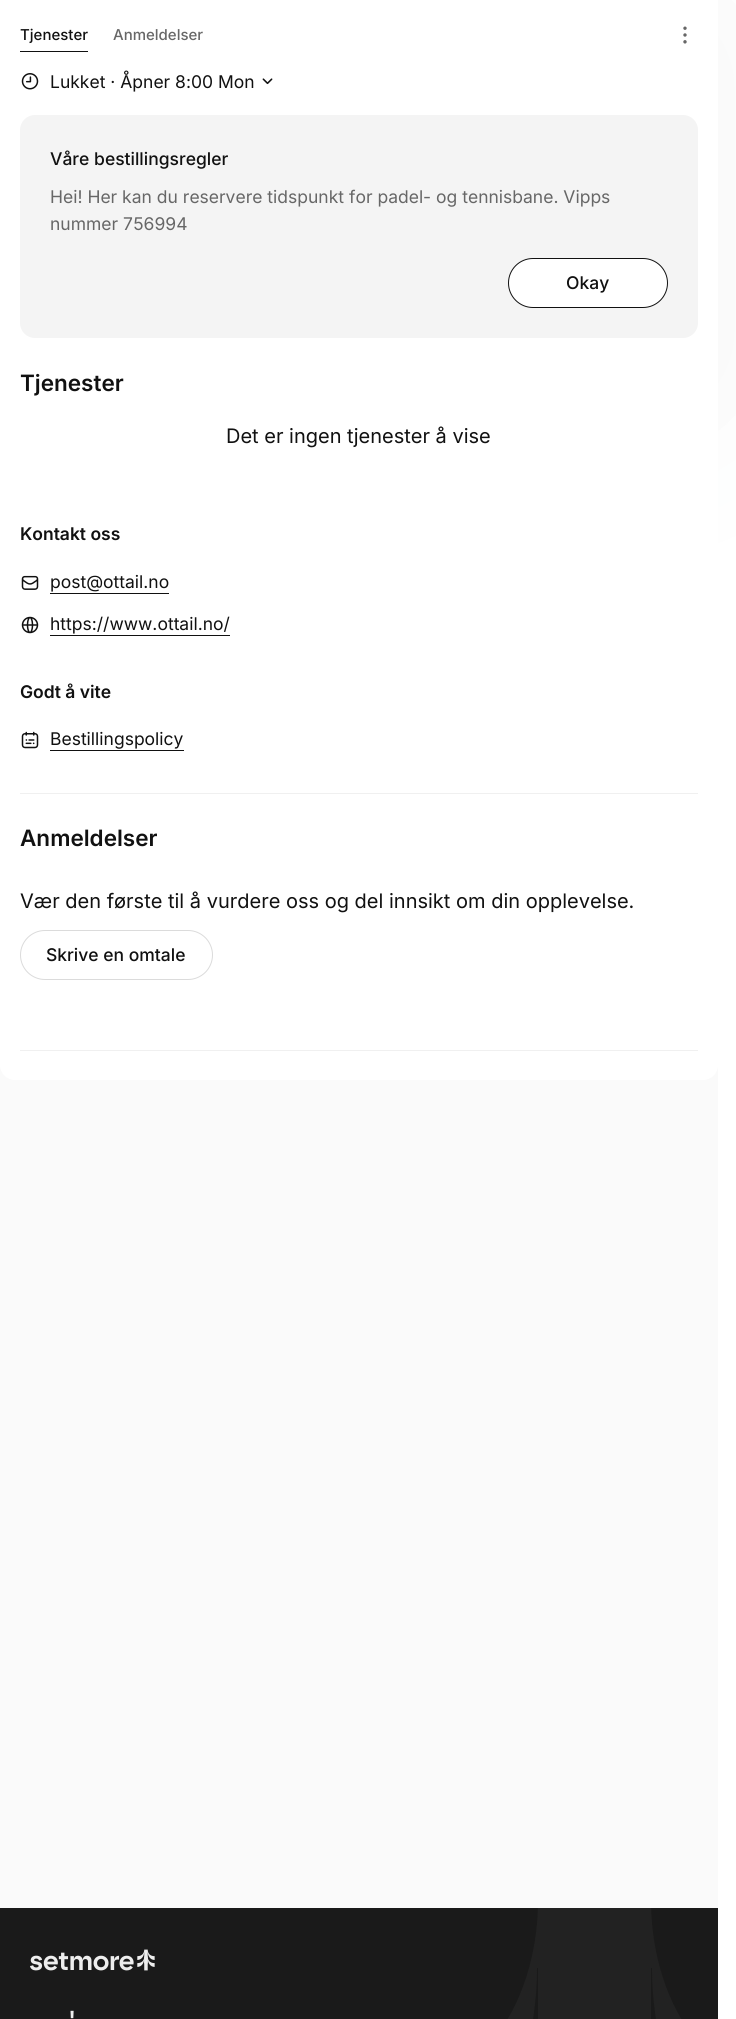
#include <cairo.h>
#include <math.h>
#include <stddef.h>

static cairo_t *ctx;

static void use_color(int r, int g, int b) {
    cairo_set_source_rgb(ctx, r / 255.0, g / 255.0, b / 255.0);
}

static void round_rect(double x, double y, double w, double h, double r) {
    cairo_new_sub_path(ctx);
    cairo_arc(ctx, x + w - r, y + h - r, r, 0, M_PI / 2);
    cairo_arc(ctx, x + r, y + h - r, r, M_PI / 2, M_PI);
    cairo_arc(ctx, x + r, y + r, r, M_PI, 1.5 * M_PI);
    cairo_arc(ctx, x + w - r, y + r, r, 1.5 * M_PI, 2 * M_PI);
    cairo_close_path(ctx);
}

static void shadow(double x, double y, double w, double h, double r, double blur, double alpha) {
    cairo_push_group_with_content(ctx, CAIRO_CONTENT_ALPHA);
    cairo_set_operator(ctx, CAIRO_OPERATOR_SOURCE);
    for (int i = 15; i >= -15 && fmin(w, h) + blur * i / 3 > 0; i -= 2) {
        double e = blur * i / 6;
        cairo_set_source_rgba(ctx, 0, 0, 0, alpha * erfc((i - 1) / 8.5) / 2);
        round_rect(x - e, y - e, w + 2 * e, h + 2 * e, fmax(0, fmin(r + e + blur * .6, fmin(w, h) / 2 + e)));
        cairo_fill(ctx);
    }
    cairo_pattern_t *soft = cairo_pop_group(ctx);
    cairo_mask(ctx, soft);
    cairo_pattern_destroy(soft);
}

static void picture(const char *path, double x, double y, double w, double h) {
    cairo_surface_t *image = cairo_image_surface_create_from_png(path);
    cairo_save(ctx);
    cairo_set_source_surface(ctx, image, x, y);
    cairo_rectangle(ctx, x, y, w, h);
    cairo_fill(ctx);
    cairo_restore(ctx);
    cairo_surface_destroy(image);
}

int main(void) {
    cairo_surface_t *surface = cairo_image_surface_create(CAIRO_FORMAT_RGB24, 736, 2019);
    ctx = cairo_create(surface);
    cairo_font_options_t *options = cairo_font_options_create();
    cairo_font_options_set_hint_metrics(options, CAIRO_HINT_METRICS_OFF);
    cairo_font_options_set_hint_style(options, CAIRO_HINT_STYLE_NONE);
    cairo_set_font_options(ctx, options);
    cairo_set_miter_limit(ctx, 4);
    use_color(255, 255, 255);
    cairo_paint(ctx);
    use_color(250, 250, 250);
    cairo_rectangle(ctx, 0, 1065, 718, 843);
    cairo_fill(ctx);
    use_color(63, 68, 71);
    shadow(0, 13, 718, 393, 15, 100, 0.06);
    use_color(255, 255, 255);
    round_rect(0, -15, 718, 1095, 15);
    cairo_fill(ctx);
    cairo_select_font_face(ctx, "Inter Medium", CAIRO_FONT_SLANT_NORMAL, CAIRO_FONT_WEIGHT_NORMAL);
    cairo_set_font_size(ctx, 15);
    use_color(17, 17, 17);
    cairo_move_to(ctx, 20, 40);
    cairo_show_text(ctx, "Tjenester");
    cairo_rectangle(ctx, 20, 51, 68, 1);
    cairo_fill(ctx);
    use_color(103, 103, 103);
    cairo_move_to(ctx, 113, 40);
    cairo_show_text(ctx, "Anmeldelser");
    picture("img1.png", 683, 26, 4, 18);
    picture("img2.png", 21, 73, 18, 17);
    cairo_select_font_face(ctx, "Inter", CAIRO_FONT_SLANT_NORMAL, CAIRO_FONT_WEIGHT_NORMAL);
    cairo_set_font_size(ctx, 17.5);
    use_color(17, 17, 17);
    cairo_move_to(ctx, 50, 88);
    cairo_show_text(ctx, "Lukket · Åpner 8:00 Mon");
    picture("img3.png", 262, 78, 11, 7);
    use_color(244, 244, 244);
    round_rect(20, 115, 678, 223, 15);
    cairo_fill(ctx);
    cairo_select_font_face(ctx, "Inter Medium", CAIRO_FONT_SLANT_NORMAL, CAIRO_FONT_WEIGHT_NORMAL);
    use_color(17, 17, 17);
    cairo_move_to(ctx, 50, 165);
    cairo_show_text(ctx, "Våre bestillingsregler");
    cairo_select_font_face(ctx, "Inter", CAIRO_FONT_SLANT_NORMAL, CAIRO_FONT_WEIGHT_NORMAL);
    use_color(103, 103, 103);
    cairo_move_to(ctx, 50, 203);
    cairo_show_text(ctx, "Hei! Her kan du reservere tidspunkt for padel- og tennisbane. Vipps");
    cairo_move_to(ctx, 50, 230);
    cairo_show_text(ctx, "nummer 756994");
    use_color(255, 255, 255);
    round_rect(508.5, 258.5, 159, 49, 24.5);
    cairo_fill_preserve(ctx);
    use_color(17, 17, 17);
    cairo_set_line_width(ctx, 1);
    cairo_stroke(ctx);
    cairo_select_font_face(ctx, "Inter Medium", CAIRO_FONT_SLANT_NORMAL, CAIRO_FONT_WEIGHT_NORMAL);
    cairo_move_to(ctx, 566, 289);
    cairo_show_text(ctx, "Okay");
    cairo_select_font_face(ctx, "Inter SemiBold", CAIRO_FONT_SLANT_NORMAL, CAIRO_FONT_WEIGHT_NORMAL);
    cairo_set_font_size(ctx, 22.5);
    cairo_move_to(ctx, 20, 391);
    cairo_show_text(ctx, "Tjenester");
    cairo_select_font_face(ctx, "Inter", CAIRO_FONT_SLANT_NORMAL, CAIRO_FONT_WEIGHT_NORMAL);
    cairo_set_font_size(ctx, 20);
    cairo_move_to(ctx, 226, 443);
    cairo_show_text(ctx, "Det er ingen tjenester å vise");
    cairo_select_font_face(ctx, "Inter SemiBold", CAIRO_FONT_SLANT_NORMAL, CAIRO_FONT_WEIGHT_NORMAL);
    cairo_set_font_size(ctx, 17.5);
    cairo_move_to(ctx, 20, 540);
    cairo_show_text(ctx, "Kontakt oss");
    picture("img4.png", 21, 575, 18, 15);
    cairo_select_font_face(ctx, "Inter", CAIRO_FONT_SLANT_NORMAL, CAIRO_FONT_WEIGHT_NORMAL);
    cairo_move_to(ctx, 50, 588);
    cairo_show_text(ctx, "post@ottail.no");
    cairo_rectangle(ctx, 50, 593, 119, 1);
    cairo_fill(ctx);
    picture("img5.png", 21, 616, 18, 18);
    cairo_move_to(ctx, 50, 630);
    cairo_show_text(ctx, "https://www.ottail.no/");
    cairo_rectangle(ctx, 50, 635, 180, 1);
    cairo_fill(ctx);
    cairo_select_font_face(ctx, "Inter SemiBold", CAIRO_FONT_SLANT_NORMAL, CAIRO_FONT_WEIGHT_NORMAL);
    cairo_move_to(ctx, 20, 698);
    cairo_show_text(ctx, "Godt å vite");
    picture("img6.png", 21, 731, 18, 18);
    cairo_select_font_face(ctx, "Inter", CAIRO_FONT_SLANT_NORMAL, CAIRO_FONT_WEIGHT_NORMAL);
    cairo_move_to(ctx, 50, 745);
    cairo_show_text(ctx, "Bestillingspolicy");
    cairo_rectangle(ctx, 50, 750, 134, 1);
    cairo_fill(ctx);
    use_color(240, 240, 240);
    cairo_rectangle(ctx, 20, 793, 678, 1);
    cairo_fill(ctx);
    cairo_select_font_face(ctx, "Inter SemiBold", CAIRO_FONT_SLANT_NORMAL, CAIRO_FONT_WEIGHT_NORMAL);
    cairo_set_font_size(ctx, 22.5);
    use_color(17, 17, 17);
    cairo_move_to(ctx, 20, 846);
    cairo_show_text(ctx, "Anmeldelser");
    cairo_select_font_face(ctx, "Inter", CAIRO_FONT_SLANT_NORMAL, CAIRO_FONT_WEIGHT_NORMAL);
    cairo_set_font_size(ctx, 20);
    cairo_move_to(ctx, 20, 908);
    cairo_show_text(ctx, "Vær den første til å vurdere oss og del innsikt om din opplevelse.");
    round_rect(20.5, 930.5, 192, 49, 24.5);
    use_color(219, 219, 219);
    cairo_stroke(ctx);
    cairo_select_font_face(ctx, "Inter Medium", CAIRO_FONT_SLANT_NORMAL, CAIRO_FONT_WEIGHT_NORMAL);
    cairo_set_font_size(ctx, 17.5);
    use_color(17, 17, 17);
    cairo_move_to(ctx, 46, 961);
    cairo_show_text(ctx, "Skrive en omtale");
    use_color(240, 240, 240);
    cairo_rectangle(ctx, 20, 1050, 678, 1);
    cairo_fill(ctx);
    use_color(26, 26, 26);
    cairo_rectangle(ctx, 0, 1908, 718, 111);
    cairo_fill(ctx);
    picture("img7.png", 30, 1949, 125, 22);
    cairo_select_font_face(ctx, "Inter SemiBold", CAIRO_FONT_SLANT_NORMAL, CAIRO_FONT_WEIGHT_NORMAL);
    cairo_set_font_size(ctx, 25);
    use_color(238, 238, 238);
    cairo_move_to(ctx, 68, 2029);
    cairo_show_text(ctx, "'");
    cairo_save(ctx);
    cairo_rectangle(ctx, 314, 1908, 404, 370);
    cairo_clip(ctx);
    use_color(34, 34, 34);
    cairo_new_path(ctx);
    cairo_move_to(ctx, 538, 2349);
    cairo_line_to(ctx, 538, 1968);
    cairo_line_to(ctx, 537, 1968);
    cairo_curve_to(ctx, 537, 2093, 464, 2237, 314, 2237);
    cairo_line_to(ctx, 314, 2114);
    cairo_curve_to(ctx, 499, 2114, 538, 1981, 538, 1901);
    cairo_line_to(ctx, 651, 1901);
    cairo_curve_to(ctx, 651, 1981, 690, 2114, 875, 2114);
    cairo_line_to(ctx, 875, 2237);
    cairo_curve_to(ctx, 725, 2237, 652, 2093, 652, 1968);
    cairo_line_to(ctx, 651, 1968);
    cairo_line_to(ctx, 651, 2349);
    cairo_close_path(ctx);
    cairo_fill(ctx);
    cairo_restore(ctx);
    cairo_surface_write_to_png(surface, "result.png");
    cairo_font_options_destroy(options);
    cairo_destroy(ctx);
    cairo_surface_destroy(surface);
    return 0;
}
